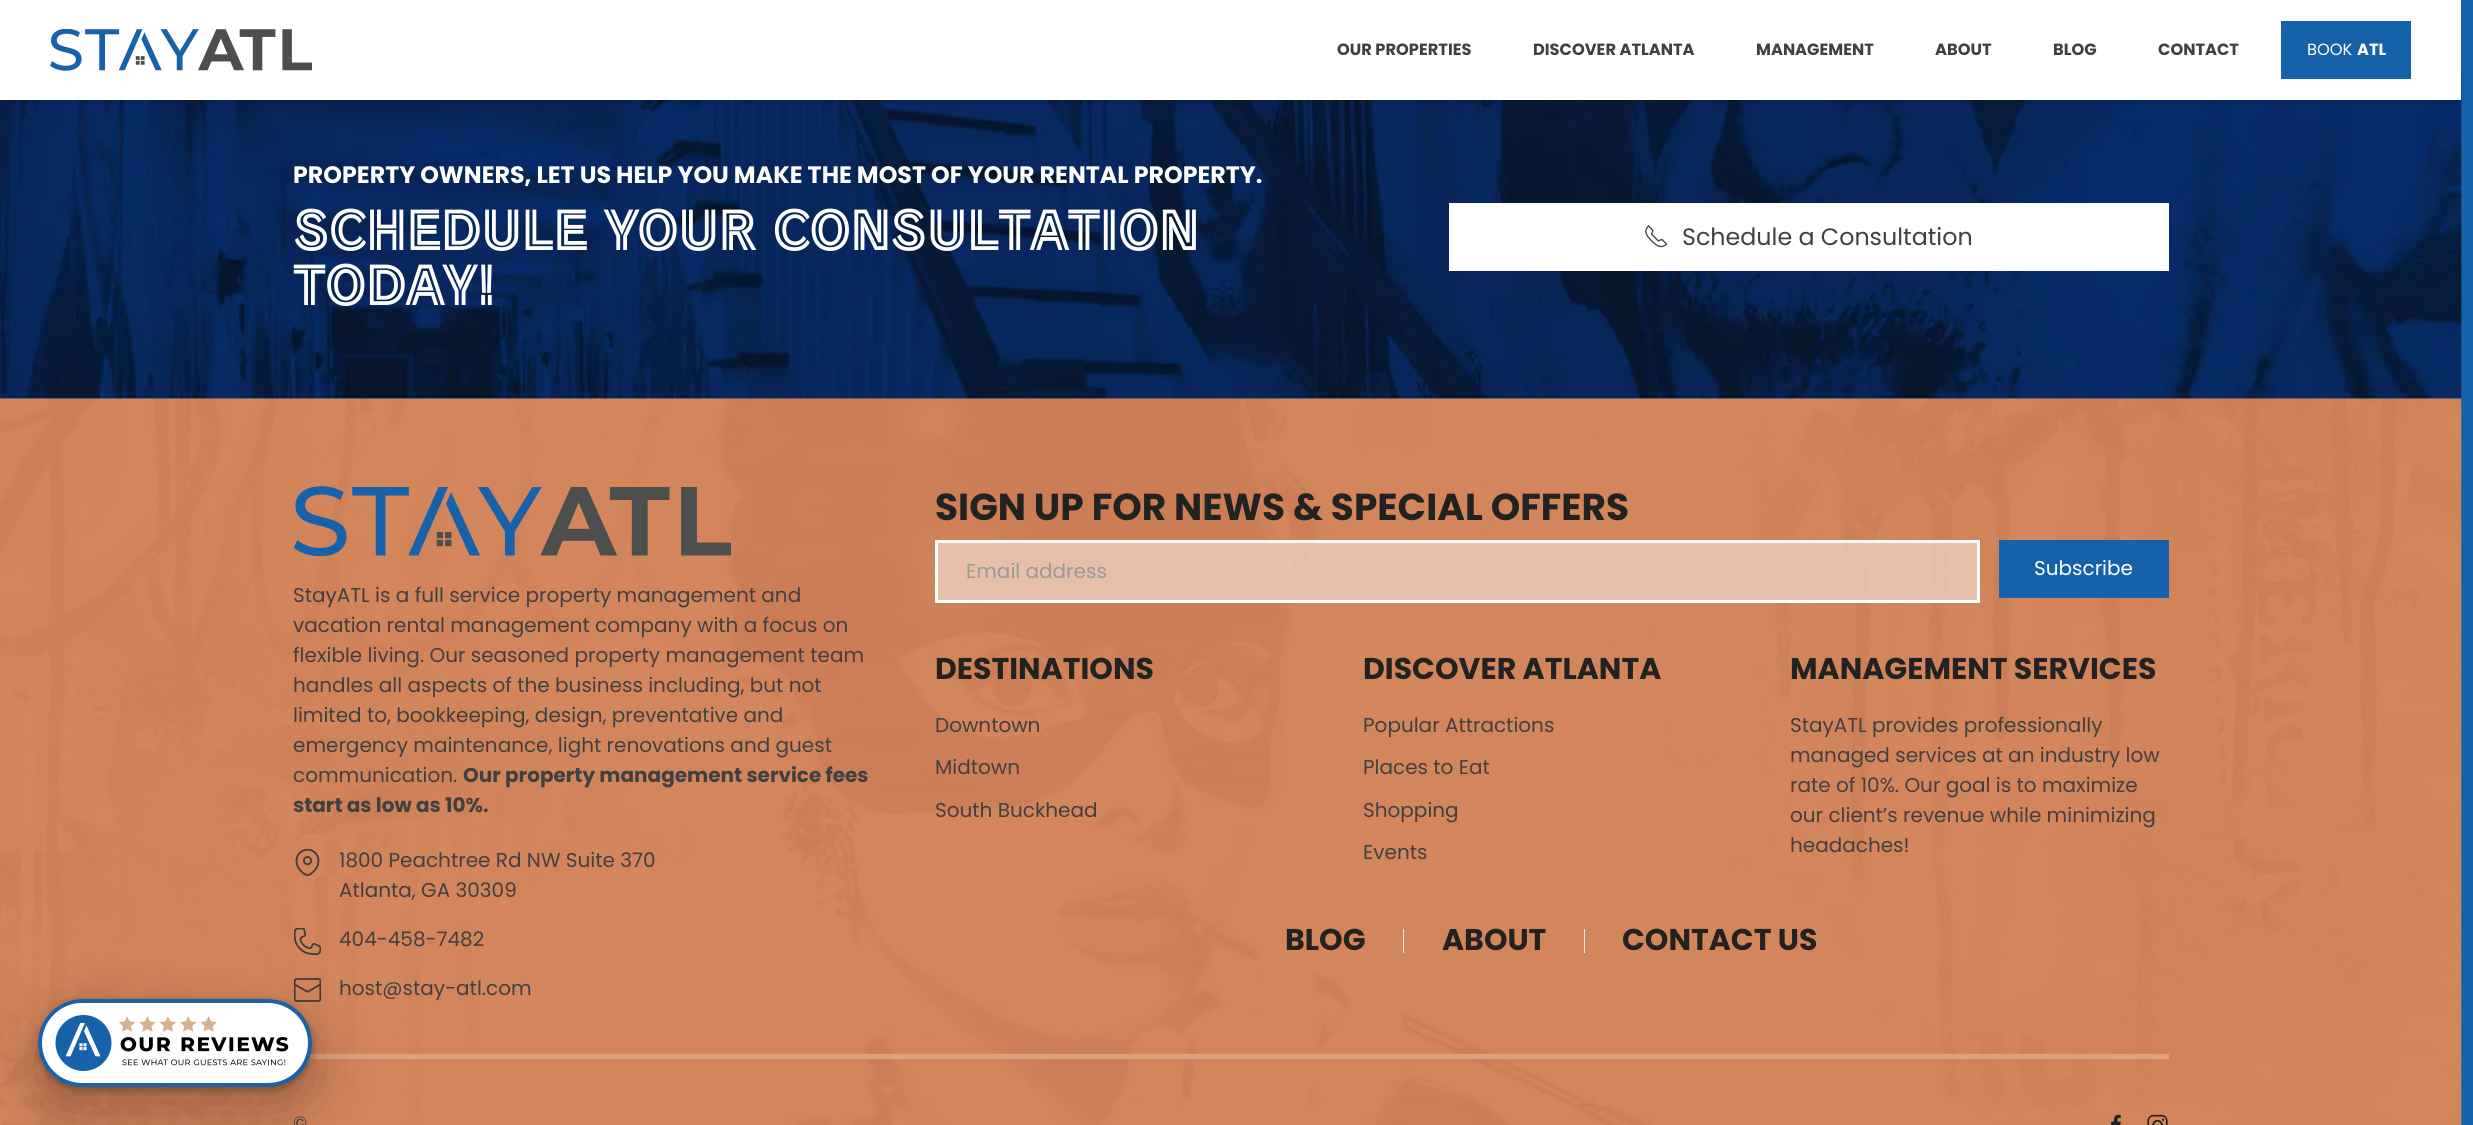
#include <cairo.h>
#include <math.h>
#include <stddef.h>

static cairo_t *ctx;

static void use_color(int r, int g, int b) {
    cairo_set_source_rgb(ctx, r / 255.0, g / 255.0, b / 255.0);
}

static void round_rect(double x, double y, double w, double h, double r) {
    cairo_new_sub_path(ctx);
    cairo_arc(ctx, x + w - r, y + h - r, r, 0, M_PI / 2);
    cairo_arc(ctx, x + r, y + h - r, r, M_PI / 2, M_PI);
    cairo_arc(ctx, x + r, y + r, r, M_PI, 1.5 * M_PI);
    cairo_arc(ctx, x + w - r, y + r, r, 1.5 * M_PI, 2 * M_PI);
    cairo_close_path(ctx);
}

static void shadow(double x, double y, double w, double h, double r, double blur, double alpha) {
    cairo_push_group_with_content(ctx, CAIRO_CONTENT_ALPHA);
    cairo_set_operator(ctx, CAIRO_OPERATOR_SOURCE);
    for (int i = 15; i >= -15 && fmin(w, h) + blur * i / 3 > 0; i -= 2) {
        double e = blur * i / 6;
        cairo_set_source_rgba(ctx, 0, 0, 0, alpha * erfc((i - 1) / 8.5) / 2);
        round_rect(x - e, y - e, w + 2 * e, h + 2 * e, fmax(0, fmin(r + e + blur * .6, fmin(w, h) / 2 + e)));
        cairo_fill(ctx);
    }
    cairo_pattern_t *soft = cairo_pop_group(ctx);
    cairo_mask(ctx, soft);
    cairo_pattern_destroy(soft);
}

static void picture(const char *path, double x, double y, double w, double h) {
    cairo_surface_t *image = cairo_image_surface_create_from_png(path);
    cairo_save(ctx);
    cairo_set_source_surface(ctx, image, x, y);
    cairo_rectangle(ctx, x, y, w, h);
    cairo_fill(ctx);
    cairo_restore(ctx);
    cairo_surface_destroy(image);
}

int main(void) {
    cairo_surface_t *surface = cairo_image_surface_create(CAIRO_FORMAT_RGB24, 2473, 1125);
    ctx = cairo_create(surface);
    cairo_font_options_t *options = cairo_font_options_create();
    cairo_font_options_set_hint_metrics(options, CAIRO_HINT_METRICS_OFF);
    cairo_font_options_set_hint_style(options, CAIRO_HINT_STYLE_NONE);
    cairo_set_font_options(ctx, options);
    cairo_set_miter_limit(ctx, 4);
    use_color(255, 255, 255);
    cairo_paint(ctx);
    use_color(21, 98, 171);
    cairo_rectangle(ctx, 2461, 0, 12, 1125);
    cairo_fill(ctx);
    picture("img2.png", 0, 75, 2462, 324);
    use_color(0, 0, 0);
    shadow(0, 1, 2461, 100, 0, 3, 0.1);
    use_color(255, 255, 255);
    cairo_rectangle(ctx, 0, 0, 2461, 100);
    cairo_fill(ctx);
    picture("img1.png", 50, 29, 262, 42);
    cairo_select_font_face(ctx, "Poppins", CAIRO_FONT_SLANT_NORMAL, CAIRO_FONT_WEIGHT_BOLD);
    cairo_set_font_size(ctx, 16.25);
    use_color(64, 64, 66);
    cairo_move_to(ctx, 1337, 55);
    cairo_show_text(ctx, "OUR PROPERTIES");
    cairo_move_to(ctx, 1533, 55);
    cairo_show_text(ctx, "DISCOVER ATLANTA");
    cairo_move_to(ctx, 1756, 55);
    cairo_show_text(ctx, "MANAGEMENT");
    cairo_move_to(ctx, 1935, 55);
    cairo_show_text(ctx, "ABOUT");
    cairo_move_to(ctx, 2053, 55);
    cairo_show_text(ctx, "BLOG");
    cairo_move_to(ctx, 2158, 55);
    cairo_show_text(ctx, "CONTACT");
    use_color(21, 98, 171);
    cairo_rectangle(ctx, 2281, 21, 130, 58);
    cairo_fill(ctx);
    cairo_select_font_face(ctx, "Poppins", CAIRO_FONT_SLANT_NORMAL, CAIRO_FONT_WEIGHT_NORMAL);
    use_color(255, 255, 255);
    cairo_move_to(ctx, 2307, 55);
    cairo_show_text(ctx, "BOOK");
    cairo_select_font_face(ctx, "Poppins", CAIRO_FONT_SLANT_NORMAL, CAIRO_FONT_WEIGHT_BOLD);
    cairo_move_to(ctx, 2357, 55);
    cairo_show_text(ctx, "ATL");
    cairo_set_font_size(ctx, 23.75);
    cairo_move_to(ctx, 293, 183);
    cairo_show_text(ctx, "PROPERTY OWNERS, LET US HELP YOU MAKE THE MOST OF YOUR RENTAL PROPERTY.");
    cairo_select_font_face(ctx, "Train One", CAIRO_FONT_SLANT_NORMAL, CAIRO_FONT_WEIGHT_BOLD);
    cairo_set_font_size(ctx, 50);
    cairo_move_to(ctx, 293, 250);
    cairo_show_text(ctx, "SCHEDULE YOUR CONSULTATION");
    cairo_move_to(ctx, 293, 305);
    cairo_show_text(ctx, "TODAY!");
    cairo_rectangle(ctx, 1449, 203, 720, 68);
    cairo_fill(ctx);
    picture("img3.png", 1645, 225, 23, 23);
    cairo_select_font_face(ctx, "Poppins", CAIRO_FONT_SLANT_NORMAL, CAIRO_FONT_WEIGHT_NORMAL);
    cairo_set_font_size(ctx, 23.75);
    use_color(64, 64, 66);
    cairo_move_to(ctx, 1682, 245);
    cairo_show_text(ctx, "Schedule a Consultation");
    picture("img5.png", 0, 398, 2462, 727);
    picture("img8.png", 294, 928, 27, 27);
    picture("img9.png", 294, 978, 27, 24);
    use_color(220, 161, 125);
    cairo_rectangle(ctx, 309, 1054, 1860, 5);
    cairo_fill(ctx);
    use_color(0, 0, 0);
    shadow(38, 1021, 275, 89, 44.5, 29.5, 0.25);
    shadow(38, 1001, 275, 89, 44.5, 3.5, 0.26);
    picture("img4.png", 38, 999, 274, 88);
    picture("img6.png", 294, 486, 437, 70);
    cairo_set_font_size(ctx, 20);
    use_color(64, 64, 66);
    cairo_move_to(ctx, 293, 602);
    cairo_show_text(ctx, "StayATL is a full service property management and");
    cairo_move_to(ctx, 293, 632);
    cairo_show_text(ctx, "vacation rental management company with a focus on");
    cairo_move_to(ctx, 293, 662);
    cairo_show_text(ctx, "flexible living. Our seasoned property management team");
    cairo_move_to(ctx, 293, 692);
    cairo_show_text(ctx, "handles all aspects of the business including, but not");
    cairo_move_to(ctx, 293, 722);
    cairo_show_text(ctx, "limited to, bookkeeping, design, preventative and");
    cairo_move_to(ctx, 293, 752);
    cairo_show_text(ctx, "emergency maintenance, light renovations and guest");
    cairo_move_to(ctx, 293, 782);
    cairo_show_text(ctx, "communication.");
    cairo_select_font_face(ctx, "Poppins", CAIRO_FONT_SLANT_NORMAL, CAIRO_FONT_WEIGHT_BOLD);
    cairo_move_to(ctx, 463, 782);
    cairo_show_text(ctx, "Our property management service fees");
    cairo_move_to(ctx, 293, 812);
    cairo_show_text(ctx, "start as low as 10%.");
    picture("img7.png", 295, 849, 25, 27);
    cairo_select_font_face(ctx, "Poppins", CAIRO_FONT_SLANT_NORMAL, CAIRO_FONT_WEIGHT_NORMAL);
    cairo_move_to(ctx, 339, 867);
    cairo_show_text(ctx, "1800 Peachtree Rd NW Suite 370");
    cairo_move_to(ctx, 339, 897);
    cairo_show_text(ctx, "Atlanta, GA 30309");
    cairo_move_to(ctx, 339, 946);
    cairo_show_text(ctx, "404-458-7482");
    cairo_move_to(ctx, 339, 995);
    cairo_show_text(ctx, "host@stay-atl.com");
    cairo_select_font_face(ctx, "Poppins", CAIRO_FONT_SLANT_NORMAL, CAIRO_FONT_WEIGHT_BOLD);
    cairo_set_font_size(ctx, 37.5);
    use_color(34, 34, 34);
    cairo_move_to(ctx, 935, 520);
    cairo_show_text(ctx, "SIGN UP FOR NEWS & SPECIAL OFFERS");
    cairo_set_source_rgba(ctx, 1, 1, 1, 0.5);
    cairo_rectangle(ctx, 936.5, 541.5, 1042, 60);
    cairo_fill_preserve(ctx);
    use_color(255, 255, 255);
    cairo_set_line_width(ctx, 3);
    cairo_stroke(ctx);
    cairo_select_font_face(ctx, "Poppins", CAIRO_FONT_SLANT_NORMAL, CAIRO_FONT_WEIGHT_NORMAL);
    cairo_set_font_size(ctx, 20);
    use_color(153, 153, 153);
    cairo_move_to(ctx, 966, 578);
    cairo_show_text(ctx, "Email address");
    use_color(21, 98, 171);
    cairo_rectangle(ctx, 1999, 540, 170, 58);
    cairo_fill(ctx);
    use_color(255, 255, 255);
    cairo_move_to(ctx, 2034, 575);
    cairo_show_text(ctx, "Subscribe");
    cairo_select_font_face(ctx, "Poppins", CAIRO_FONT_SLANT_NORMAL, CAIRO_FONT_WEIGHT_BOLD);
    cairo_set_font_size(ctx, 30);
    use_color(34, 34, 34);
    cairo_move_to(ctx, 935, 679);
    cairo_show_text(ctx, "DESTINATIONS");
    cairo_select_font_face(ctx, "Poppins", CAIRO_FONT_SLANT_NORMAL, CAIRO_FONT_WEIGHT_NORMAL);
    cairo_set_font_size(ctx, 20);
    use_color(64, 64, 66);
    cairo_move_to(ctx, 935, 732);
    cairo_show_text(ctx, "Downtown");
    cairo_move_to(ctx, 935, 774);
    cairo_show_text(ctx, "Midtown");
    cairo_move_to(ctx, 935, 817);
    cairo_show_text(ctx, "South Buckhead");
    cairo_select_font_face(ctx, "Poppins", CAIRO_FONT_SLANT_NORMAL, CAIRO_FONT_WEIGHT_BOLD);
    cairo_set_font_size(ctx, 30);
    use_color(34, 34, 34);
    cairo_move_to(ctx, 1363, 679);
    cairo_show_text(ctx, "DISCOVER ATLANTA");
    cairo_select_font_face(ctx, "Poppins", CAIRO_FONT_SLANT_NORMAL, CAIRO_FONT_WEIGHT_NORMAL);
    cairo_set_font_size(ctx, 20);
    use_color(64, 64, 66);
    cairo_move_to(ctx, 1363, 732);
    cairo_show_text(ctx, "Popular Attractions");
    cairo_move_to(ctx, 1363, 774);
    cairo_show_text(ctx, "Places to Eat");
    cairo_move_to(ctx, 1363, 817);
    cairo_show_text(ctx, "Shopping");
    cairo_move_to(ctx, 1363, 859);
    cairo_show_text(ctx, "Events");
    cairo_select_font_face(ctx, "Poppins", CAIRO_FONT_SLANT_NORMAL, CAIRO_FONT_WEIGHT_BOLD);
    cairo_set_font_size(ctx, 30);
    use_color(34, 34, 34);
    cairo_move_to(ctx, 1790, 679);
    cairo_show_text(ctx, "MANAGEMENT SERVICES");
    cairo_select_font_face(ctx, "Poppins", CAIRO_FONT_SLANT_NORMAL, CAIRO_FONT_WEIGHT_NORMAL);
    cairo_set_font_size(ctx, 20);
    use_color(64, 64, 66);
    cairo_move_to(ctx, 1790, 732);
    cairo_show_text(ctx, "StayATL provides professionally");
    cairo_move_to(ctx, 1790, 762);
    cairo_show_text(ctx, "managed services at an industry low");
    cairo_move_to(ctx, 1790, 792);
    cairo_show_text(ctx, "rate of 10%. Our goal is to maximize");
    cairo_move_to(ctx, 1790, 822);
    cairo_show_text(ctx, "our client’s revenue while minimizing");
    cairo_move_to(ctx, 1790, 852);
    cairo_show_text(ctx, "headaches!");
    cairo_select_font_face(ctx, "Poppins", CAIRO_FONT_SLANT_NORMAL, CAIRO_FONT_WEIGHT_BOLD);
    cairo_set_font_size(ctx, 30);
    use_color(34, 34, 34);
    cairo_move_to(ctx, 1285, 950);
    cairo_show_text(ctx, "BLOG");
    use_color(234, 234, 234);
    cairo_rectangle(ctx, 1403, 929, 1, 24);
    cairo_fill(ctx);
    use_color(34, 34, 34);
    cairo_move_to(ctx, 1442, 950);
    cairo_show_text(ctx, "ABOUT");
    use_color(234, 234, 234);
    cairo_rectangle(ctx, 1584, 929, 1, 24);
    cairo_fill(ctx);
    use_color(34, 34, 34);
    cairo_move_to(ctx, 1622, 950);
    cairo_show_text(ctx, "CONTACT US");
    cairo_select_font_face(ctx, "Poppins", CAIRO_FONT_SLANT_NORMAL, CAIRO_FONT_WEIGHT_NORMAL);
    cairo_set_font_size(ctx, 18);
    use_color(64, 64, 66);
    cairo_move_to(ctx, 293, 1129);
    cairo_show_text(ctx, "©");
    picture("img10.png", 2111, 1114, 10, 11);
    picture("img11.png", 2147, 1114, 21, 11);
    cairo_surface_write_to_png(surface, "result.png");
    cairo_font_options_destroy(options);
    cairo_destroy(ctx);
    cairo_surface_destroy(surface);
    return 0;
}
